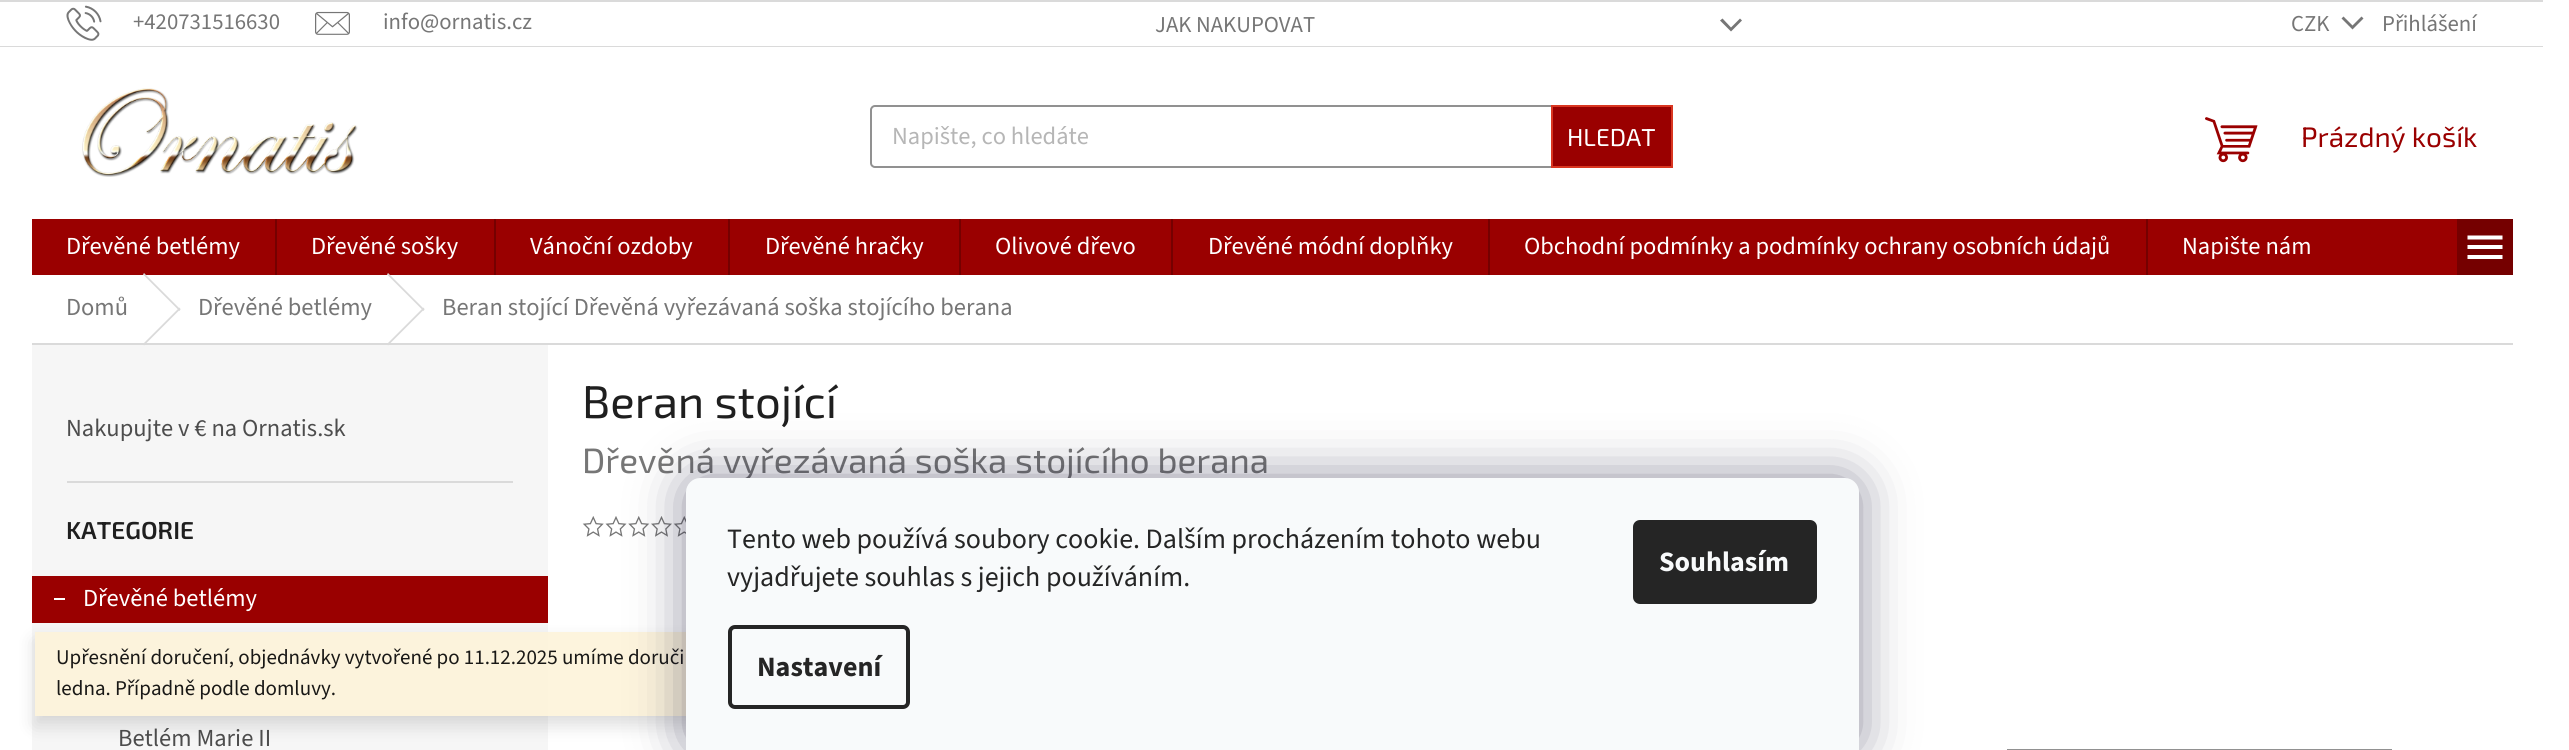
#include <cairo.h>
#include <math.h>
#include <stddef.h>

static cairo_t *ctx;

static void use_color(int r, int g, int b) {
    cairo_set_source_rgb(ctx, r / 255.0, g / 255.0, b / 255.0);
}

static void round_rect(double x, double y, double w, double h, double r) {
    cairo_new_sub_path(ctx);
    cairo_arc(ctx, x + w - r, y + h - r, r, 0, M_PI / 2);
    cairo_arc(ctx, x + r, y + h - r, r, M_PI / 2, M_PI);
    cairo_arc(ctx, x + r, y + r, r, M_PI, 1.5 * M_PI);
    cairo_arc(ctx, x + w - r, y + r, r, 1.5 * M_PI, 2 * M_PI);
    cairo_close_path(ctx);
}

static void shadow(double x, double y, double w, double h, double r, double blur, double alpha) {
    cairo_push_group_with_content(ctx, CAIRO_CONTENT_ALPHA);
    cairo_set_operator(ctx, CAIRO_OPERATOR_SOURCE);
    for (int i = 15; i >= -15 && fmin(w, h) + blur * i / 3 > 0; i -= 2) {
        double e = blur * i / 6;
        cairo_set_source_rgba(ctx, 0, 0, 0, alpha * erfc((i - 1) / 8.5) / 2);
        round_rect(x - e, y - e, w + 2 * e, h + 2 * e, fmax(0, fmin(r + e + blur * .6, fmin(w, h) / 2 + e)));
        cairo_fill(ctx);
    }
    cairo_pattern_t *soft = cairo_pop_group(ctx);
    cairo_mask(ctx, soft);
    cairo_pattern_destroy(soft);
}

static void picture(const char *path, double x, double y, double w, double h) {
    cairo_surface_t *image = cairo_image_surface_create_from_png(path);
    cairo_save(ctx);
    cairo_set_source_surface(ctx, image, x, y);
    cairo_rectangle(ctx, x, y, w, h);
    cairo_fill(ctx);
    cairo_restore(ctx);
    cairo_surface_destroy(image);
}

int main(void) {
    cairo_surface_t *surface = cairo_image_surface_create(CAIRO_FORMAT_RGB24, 2569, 750);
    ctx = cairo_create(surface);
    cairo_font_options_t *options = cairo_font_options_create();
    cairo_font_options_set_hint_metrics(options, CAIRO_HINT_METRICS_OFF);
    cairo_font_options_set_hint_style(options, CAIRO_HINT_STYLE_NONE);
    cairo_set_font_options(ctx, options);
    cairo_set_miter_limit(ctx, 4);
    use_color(255, 255, 255);
    cairo_paint(ctx);
    use_color(218, 218, 218);
    cairo_rectangle(ctx, 0, 0, 2543, 2);
    cairo_fill(ctx);
    cairo_rectangle(ctx, 0, 46, 2543, 1);
    cairo_fill(ctx);
    picture("img1.png", 66, 5, 36, 36);
    cairo_select_font_face(ctx, "Source Sans 3", CAIRO_FONT_SLANT_NORMAL, CAIRO_FONT_WEIGHT_NORMAL);
    cairo_set_font_size(ctx, 22.75);
    use_color(118, 118, 118);
    cairo_move_to(ctx, 133, 29);
    cairo_show_text(ctx, "+420731516630");
    picture("img2.png", 315, 11, 35, 24);
    cairo_move_to(ctx, 383, 29);
    cairo_show_text(ctx, "info@ornatis.cz");
    cairo_move_to(ctx, 1155, 32);
    cairo_show_text(ctx, "JAK NAKUPOVAT");
    cairo_new_path(ctx);
    cairo_move_to(ctx, 1720, 20.5);
    cairo_line_to(ctx, 1722.5, 18.5);
    cairo_line_to(ctx, 1731, 27.5);
    cairo_line_to(ctx, 1740, 18.5);
    cairo_line_to(ctx, 1742, 20.5);
    cairo_line_to(ctx, 1731, 31.5);
    cairo_close_path(ctx);
    cairo_fill(ctx);
    cairo_move_to(ctx, 2291, 31);
    cairo_show_text(ctx, "CZK");
    cairo_new_path(ctx);
    cairo_move_to(ctx, 2341.5, 18.5);
    cairo_line_to(ctx, 2343.5, 16.5);
    cairo_line_to(ctx, 2352.5, 25.5);
    cairo_line_to(ctx, 2361.5, 16.5);
    cairo_line_to(ctx, 2363.5, 18.5);
    cairo_line_to(ctx, 2352.5, 29.5);
    cairo_close_path(ctx);
    cairo_fill(ctx);
    cairo_move_to(ctx, 2382, 31);
    cairo_show_text(ctx, "Přihlášení");
    picture("img3.png", 82, 88, 276, 89);
    round_rect(871, 106, 801, 61, 4);
    use_color(145, 145, 145);
    cairo_stroke(ctx);
    cairo_set_font_size(ctx, 24.5);
    use_color(182, 182, 182);
    cairo_move_to(ctx, 892, 144);
    cairo_show_text(ctx, "Napište, co hledáte");
    use_color(154, 0, 0);
    cairo_rectangle(ctx, 1552, 106, 120, 61);
    cairo_fill_preserve(ctx);
    use_color(217, 54, 33);
    cairo_stroke(ctx);
    cairo_select_font_face(ctx, "Exo 2", CAIRO_FONT_SLANT_NORMAL, CAIRO_FONT_WEIGHT_NORMAL);
    use_color(255, 255, 255);
    cairo_move_to(ctx, 1567, 146);
    cairo_show_text(ctx, "HLEDAT");
    picture("img4.png", 2205, 117, 53, 46);
    cairo_set_font_size(ctx, 28);
    use_color(154, 0, 0);
    cairo_move_to(ctx, 2301, 147);
    cairo_show_text(ctx, "Prázdný košík");
    cairo_rectangle(ctx, 32, 219, 2425, 56);
    cairo_fill(ctx);
    cairo_select_font_face(ctx, "Source Sans 3", CAIRO_FONT_SLANT_NORMAL, CAIRO_FONT_WEIGHT_NORMAL);
    cairo_set_font_size(ctx, 24.5);
    use_color(255, 255, 255);
    cairo_move_to(ctx, 66, 254);
    cairo_show_text(ctx, "Dřevěné betlémy");
    use_color(117, 0, 0);
    cairo_rectangle(ctx, 275, 219, 2, 56);
    cairo_fill(ctx);
    use_color(255, 255, 255);
    cairo_move_to(ctx, 311, 254);
    cairo_show_text(ctx, "Dřevěné sošky");
    use_color(117, 0, 0);
    cairo_rectangle(ctx, 494, 219, 2, 56);
    cairo_fill(ctx);
    use_color(255, 255, 255);
    cairo_move_to(ctx, 530, 254);
    cairo_show_text(ctx, "Vánoční ozdoby");
    use_color(117, 0, 0);
    cairo_rectangle(ctx, 728, 219, 2, 56);
    cairo_fill(ctx);
    use_color(255, 255, 255);
    cairo_move_to(ctx, 765, 254);
    cairo_show_text(ctx, "Dřevěné hračky");
    use_color(117, 0, 0);
    cairo_rectangle(ctx, 959, 219, 2, 56);
    cairo_fill(ctx);
    use_color(255, 255, 255);
    cairo_move_to(ctx, 995, 254);
    cairo_show_text(ctx, "Olivové dřevo");
    use_color(117, 0, 0);
    cairo_rectangle(ctx, 1171, 219, 2, 56);
    cairo_fill(ctx);
    use_color(255, 255, 255);
    cairo_move_to(ctx, 1208, 254);
    cairo_show_text(ctx, "Dřevěné módní doplňky");
    use_color(117, 0, 0);
    cairo_rectangle(ctx, 1488, 219, 2, 56);
    cairo_fill(ctx);
    use_color(255, 255, 255);
    cairo_move_to(ctx, 1524, 254);
    cairo_show_text(ctx, "Obchodní podmínky a podmínky ochrany osobních údajů");
    use_color(117, 0, 0);
    cairo_rectangle(ctx, 2146, 219, 2, 56);
    cairo_fill(ctx);
    use_color(255, 255, 255);
    cairo_move_to(ctx, 2182, 254);
    cairo_show_text(ctx, "Napište nám");
    use_color(117, 0, 0);
    cairo_rectangle(ctx, 2457, 219, 56, 56);
    cairo_fill(ctx);
    use_color(255, 255, 255);
    cairo_new_path(ctx);
    cairo_move_to(ctx, 2467.5, 259);
    cairo_line_to(ctx, 2502.5, 259);
    cairo_line_to(ctx, 2502.5, 255);
    cairo_line_to(ctx, 2467.5, 255);
    cairo_close_path(ctx);
    cairo_move_to(ctx, 2467.5, 249);
    cairo_line_to(ctx, 2502.5, 249);
    cairo_line_to(ctx, 2502.5, 245);
    cairo_line_to(ctx, 2467.5, 245);
    cairo_close_path(ctx);
    cairo_move_to(ctx, 2467.5, 235.5);
    cairo_line_to(ctx, 2467.5, 239.5);
    cairo_line_to(ctx, 2502.5, 239.5);
    cairo_line_to(ctx, 2502.5, 235.5);
    cairo_close_path(ctx);
    cairo_fill(ctx);
    use_color(218, 218, 218);
    cairo_rectangle(ctx, 32, 343, 2481, 2);
    cairo_fill(ctx);
    use_color(118, 118, 118);
    cairo_move_to(ctx, 66, 315);
    cairo_show_text(ctx, "Domů");
    use_color(218, 218, 218);
    cairo_new_path(ctx);
    cairo_move_to(ctx, 143, 274.5);
    cairo_line_to(ctx, 144, 273);
    cairo_line_to(ctx, 180.5, 309.5);
    cairo_line_to(ctx, 179.5, 311);
    cairo_close_path(ctx);
    cairo_fill(ctx);
    use_color(246, 246, 246);
    cairo_rectangle(ctx, 32, 345, 516, 405);
    cairo_fill(ctx);
    use_color(218, 218, 218);
    cairo_new_path(ctx);
    cairo_move_to(ctx, 179.5, 307.5);
    cairo_line_to(ctx, 180.5, 309);
    cairo_line_to(ctx, 144, 345.5);
    cairo_line_to(ctx, 143, 344);
    cairo_close_path(ctx);
    cairo_fill(ctx);
    use_color(118, 118, 118);
    cairo_move_to(ctx, 198, 315);
    cairo_show_text(ctx, "Dřevěné betlémy");
    use_color(218, 218, 218);
    cairo_new_path(ctx);
    cairo_move_to(ctx, 387, 274.5);
    cairo_line_to(ctx, 388, 273);
    cairo_line_to(ctx, 424.5, 309.5);
    cairo_line_to(ctx, 423.5, 311);
    cairo_close_path(ctx);
    cairo_fill(ctx);
    cairo_new_path(ctx);
    cairo_move_to(ctx, 423.5, 307.5);
    cairo_line_to(ctx, 424.5, 309);
    cairo_line_to(ctx, 388, 345.5);
    cairo_line_to(ctx, 387, 344);
    cairo_close_path(ctx);
    cairo_fill(ctx);
    use_color(118, 118, 118);
    cairo_move_to(ctx, 442, 315);
    cairo_show_text(ctx, "Beran stojící Dřevěná vyřezávaná soška stojícího berana");
    use_color(218, 218, 218);
    cairo_rectangle(ctx, 67, 481, 446, 2);
    cairo_fill(ctx);
    use_color(77, 77, 77);
    cairo_move_to(ctx, 66, 436);
    cairo_show_text(ctx, "Nakupujte v € na Ornatis.sk");
    cairo_select_font_face(ctx, "Exo 2 SemiBold", CAIRO_FONT_SLANT_NORMAL, CAIRO_FONT_WEIGHT_NORMAL);
    use_color(31, 31, 31);
    cairo_move_to(ctx, 66, 539);
    cairo_show_text(ctx, "KATEGORIE");
    use_color(154, 0, 0);
    cairo_rectangle(ctx, 32, 576, 516, 47);
    cairo_fill(ctx);
    use_color(255, 255, 255);
    cairo_rectangle(ctx, 54, 598, 11, 2);
    cairo_fill(ctx);
    cairo_select_font_face(ctx, "Source Sans 3", CAIRO_FONT_SLANT_NORMAL, CAIRO_FONT_WEIGHT_NORMAL);
    cairo_move_to(ctx, 83, 606);
    cairo_show_text(ctx, "Dřevěné betlémy");
    use_color(77, 77, 77);
    cairo_move_to(ctx, 118, 746);
    cairo_show_text(ctx, "Betlém Marie II");
    cairo_select_font_face(ctx, "Exo 2", CAIRO_FONT_SLANT_NORMAL, CAIRO_FONT_WEIGHT_NORMAL);
    cairo_set_font_size(ctx, 45.5);
    use_color(31, 31, 31);
    cairo_move_to(ctx, 582, 418);
    cairo_show_text(ctx, "Beran stojící");
    cairo_set_font_size(ctx, 35);
    use_color(118, 118, 118);
    cairo_move_to(ctx, 582, 473);
    cairo_show_text(ctx, "Dřevěná vyřezávaná soška stojícího berana");
    picture("img5.png", 582, 516, 22, 21);
    picture("img6.png", 605, 516, 22, 21);
    picture("img7.png", 628, 516, 22, 21);
    picture("img8.png", 651, 516, 21, 21);
    picture("img9.png", 673, 516, 13, 21);
    cairo_rectangle(ctx, 2008, 750, 383, 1);
    use_color(145, 145, 145);
    cairo_stroke(ctx);
    cairo_save(ctx);
    cairo_set_fill_rule(ctx, CAIRO_FILL_RULE_EVEN_ODD);
    cairo_new_path(ctx);
    cairo_move_to(ctx, 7, 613);
    cairo_line_to(ctx, 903, 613);
    cairo_line_to(ctx, 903, 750);
    cairo_line_to(ctx, 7, 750);
    cairo_close_path(ctx);
    cairo_move_to(ctx, 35, 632);
    cairo_line_to(ctx, 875, 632);
    cairo_line_to(ctx, 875, 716);
    cairo_line_to(ctx, 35, 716);
    cairo_close_path(ctx);
    cairo_clip(ctx);
    use_color(0, 0, 0);
    shadow(35, 641, 840, 84, 0, 9, 0.14);
    cairo_restore(ctx);
    cairo_set_source_rgba(ctx, 0.992, 0.953, 0.855, 0.9);
    cairo_rectangle(ctx, 35, 632, 651, 84);
    cairo_fill(ctx);
    cairo_select_font_face(ctx, "Source Sans 3", CAIRO_FONT_SLANT_NORMAL, CAIRO_FONT_WEIGHT_NORMAL);
    cairo_set_font_size(ctx, 21);
    use_color(25, 24, 22);
    cairo_move_to(ctx, 56, 664);
    cairo_show_text(ctx, "Upřesnění doručení, objednávky vytvořené po 11.12.2025 umíme doruči");
    cairo_move_to(ctx, 56, 695);
    cairo_show_text(ctx, "ledna. Případně podle domluvy.");
    use_color(27, 25, 57);
    shadow(686, 478, 1173, 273, 14, 26, 0.5);
    use_color(248, 250, 251);
    cairo_new_path(ctx);
    cairo_move_to(ctx, 700, 478);
    cairo_line_to(ctx, 1845, 478);
    cairo_curve_to(ctx, 1852.5, 478, 1859, 484.5, 1859, 492);
    cairo_line_to(ctx, 1859, 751);
    cairo_line_to(ctx, 686, 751);
    cairo_line_to(ctx, 686, 492);
    cairo_curve_to(ctx, 686, 484.5, 692.5, 478, 700, 478);
    cairo_close_path(ctx);
    cairo_fill(ctx);
    cairo_set_font_size(ctx, 28);
    use_color(37, 37, 37);
    cairo_move_to(ctx, 727, 548);
    cairo_show_text(ctx, "Tento web používá soubory cookie. Dalším procházením tohoto webu");
    cairo_move_to(ctx, 727, 586);
    cairo_show_text(ctx, "vyjadřujete souhlas s jejich používáním.");
    round_rect(730, 627, 178, 80, 5);
    cairo_set_line_width(ctx, 4);
    cairo_stroke(ctx);
    cairo_select_font_face(ctx, "Source Sans 3", CAIRO_FONT_SLANT_NORMAL, CAIRO_FONT_WEIGHT_BOLD);
    cairo_move_to(ctx, 757, 676);
    cairo_show_text(ctx, "Nastavení");
    round_rect(1633, 520, 184, 84, 7);
    cairo_fill(ctx);
    use_color(248, 250, 251);
    cairo_move_to(ctx, 1659, 571);
    cairo_show_text(ctx, "Souhlasím");
    cairo_surface_write_to_png(surface, "result.png");
    cairo_font_options_destroy(options);
    cairo_destroy(ctx);
    cairo_surface_destroy(surface);
    return 0;
}
